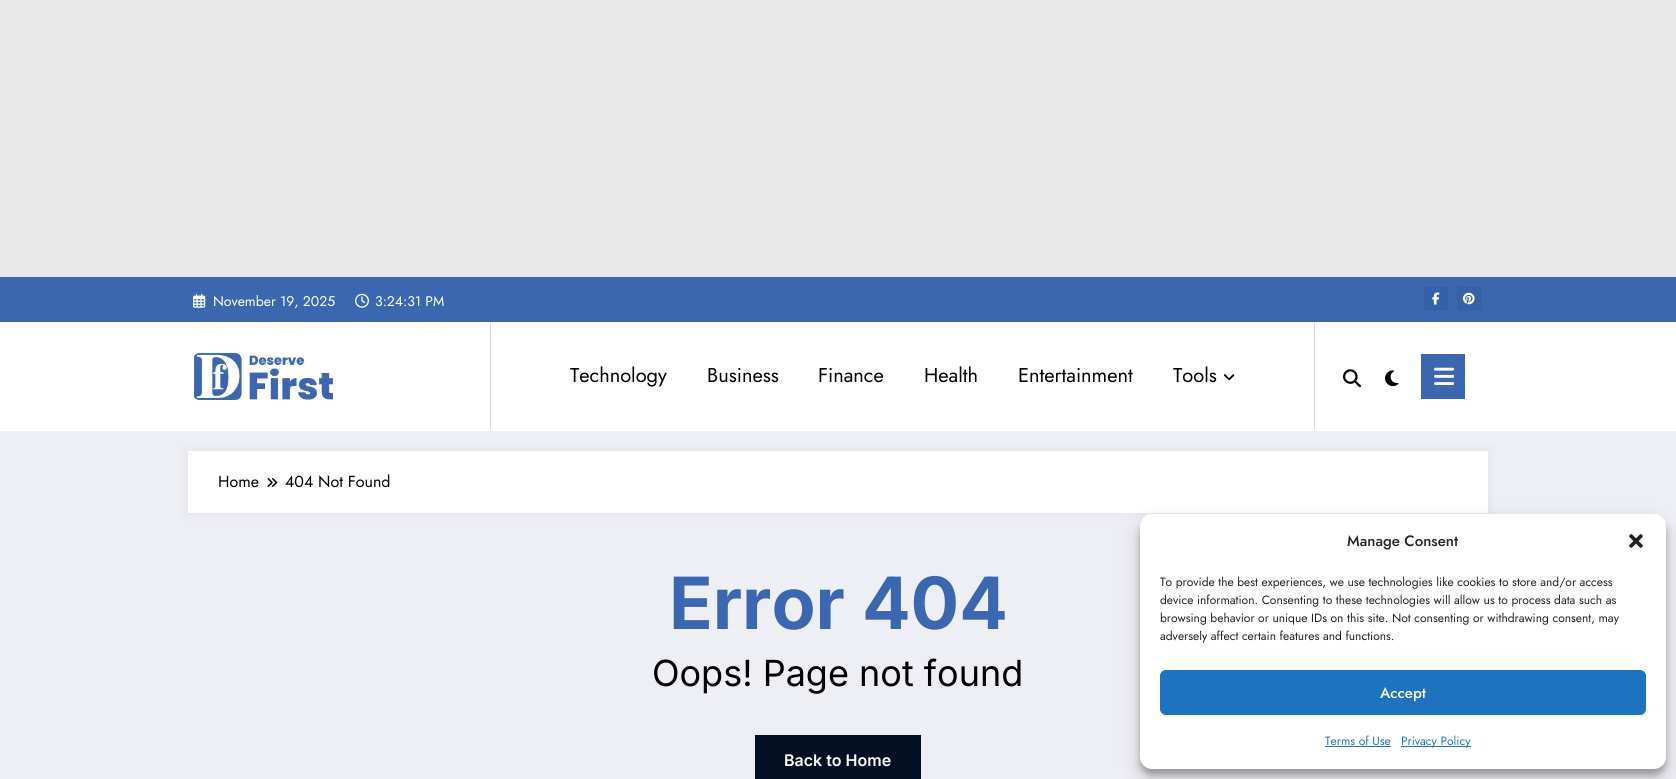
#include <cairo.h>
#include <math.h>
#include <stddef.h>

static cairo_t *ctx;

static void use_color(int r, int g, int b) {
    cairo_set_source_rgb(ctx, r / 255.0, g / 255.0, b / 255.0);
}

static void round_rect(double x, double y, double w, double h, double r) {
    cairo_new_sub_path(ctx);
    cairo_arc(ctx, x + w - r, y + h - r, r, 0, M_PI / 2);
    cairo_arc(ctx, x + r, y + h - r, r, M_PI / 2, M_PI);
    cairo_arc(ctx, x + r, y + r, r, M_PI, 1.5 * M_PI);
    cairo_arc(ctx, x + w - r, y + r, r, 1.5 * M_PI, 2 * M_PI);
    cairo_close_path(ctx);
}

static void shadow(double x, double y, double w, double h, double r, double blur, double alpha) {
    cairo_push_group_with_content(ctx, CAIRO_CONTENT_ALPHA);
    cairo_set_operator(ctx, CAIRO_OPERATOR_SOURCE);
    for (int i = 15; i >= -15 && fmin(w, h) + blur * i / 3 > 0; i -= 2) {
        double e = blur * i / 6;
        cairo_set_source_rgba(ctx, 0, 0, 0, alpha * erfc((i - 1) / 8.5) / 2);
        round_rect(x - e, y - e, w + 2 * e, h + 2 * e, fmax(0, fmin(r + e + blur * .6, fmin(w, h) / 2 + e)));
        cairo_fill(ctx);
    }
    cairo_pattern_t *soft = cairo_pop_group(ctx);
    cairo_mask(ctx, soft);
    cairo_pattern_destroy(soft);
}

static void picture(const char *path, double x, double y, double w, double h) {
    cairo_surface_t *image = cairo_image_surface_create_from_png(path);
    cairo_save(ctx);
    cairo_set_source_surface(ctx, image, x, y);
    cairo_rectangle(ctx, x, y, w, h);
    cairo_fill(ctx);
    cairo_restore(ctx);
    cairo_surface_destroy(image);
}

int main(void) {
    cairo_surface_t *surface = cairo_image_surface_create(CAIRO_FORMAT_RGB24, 1676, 779);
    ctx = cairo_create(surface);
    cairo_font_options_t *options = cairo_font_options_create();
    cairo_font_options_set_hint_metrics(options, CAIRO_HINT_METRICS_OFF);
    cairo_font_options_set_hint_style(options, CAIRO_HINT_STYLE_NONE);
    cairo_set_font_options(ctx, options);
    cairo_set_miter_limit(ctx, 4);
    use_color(232, 232, 232);
    cairo_paint(ctx);
    use_color(238, 238, 245);
    cairo_rectangle(ctx, 0, 431, 1676, 348);
    cairo_fill(ctx);
    use_color(59, 103, 177);
    cairo_rectangle(ctx, 0, 277, 1676, 45);
    cairo_fill(ctx);
    picture("img1.png", 193, 293, 13, 15);
    cairo_select_font_face(ctx, "Jost", CAIRO_FONT_SLANT_NORMAL, CAIRO_FONT_WEIGHT_NORMAL);
    cairo_set_font_size(ctx, 14);
    use_color(255, 255, 255);
    cairo_move_to(ctx, 213, 306);
    cairo_show_text(ctx, "November 19, 2025");
    picture("img2.png", 355, 293, 14, 15);
    cairo_move_to(ctx, 375, 306);
    cairo_show_text(ctx, "3:24:31 PM");
    use_color(55, 97, 166);
    cairo_rectangle(ctx, 1424, 287, 24, 24);
    cairo_fill(ctx);
    picture("img3.png", 1432, 292, 8, 13);
    cairo_rectangle(ctx, 1457, 287, 24, 24);
    cairo_fill(ctx);
    picture("img4.png", 1463, 292, 12, 13);
    use_color(255, 255, 255);
    cairo_rectangle(ctx, 0, 322, 1676, 109);
    cairo_fill(ctx);
    picture("img5.png", 194, 352, 139, 48);
    use_color(215, 215, 215);
    cairo_rectangle(ctx, 1314, 323, 1, 106);
    cairo_fill(ctx);
    cairo_rectangle(ctx, 490, 323, 1, 106);
    cairo_fill(ctx);
    cairo_set_font_size(ctx, 20);
    use_color(0, 0, 0);
    cairo_move_to(ctx, 570, 382);
    cairo_show_text(ctx, "Technology");
    cairo_move_to(ctx, 707, 382);
    cairo_show_text(ctx, "Business");
    cairo_move_to(ctx, 818, 382);
    cairo_show_text(ctx, "Finance");
    cairo_move_to(ctx, 924, 382);
    cairo_show_text(ctx, "Health");
    cairo_move_to(ctx, 1018, 382);
    cairo_show_text(ctx, "Entertainment");
    cairo_move_to(ctx, 1173, 382);
    cairo_show_text(ctx, "Tools");
    picture("img6.png", 1224, 374, 11, 7);
    picture("img7.png", 1343, 369, 18, 19);
    picture("img8.png", 1385, 370, 14, 17);
    use_color(59, 103, 177);
    cairo_rectangle(ctx, 1421, 354, 44, 45);
    cairo_fill(ctx);
    picture("img9.png", 1434, 367, 21, 18);
    use_color(23, 23, 35);
    shadow(186, 449, 1304, 66, 0, 4, 0.05);
    use_color(255, 255, 255);
    cairo_rectangle(ctx, 188, 451, 1300, 62);
    cairo_fill(ctx);
    cairo_set_font_size(ctx, 16);
    use_color(0, 0, 0);
    cairo_move_to(ctx, 218, 487);
    cairo_show_text(ctx, "Home");
    picture("img10.png", 267, 478, 11, 9);
    cairo_move_to(ctx, 285, 487);
    cairo_show_text(ctx, "404 Not Found");
    cairo_select_font_face(ctx, "Inter", CAIRO_FONT_SLANT_NORMAL, CAIRO_FONT_WEIGHT_BOLD);
    cairo_set_font_size(ctx, 72);
    use_color(59, 103, 177);
    cairo_move_to(ctx, 669, 629);
    cairo_show_text(ctx, "Error 404");
    cairo_select_font_face(ctx, "Inter", CAIRO_FONT_SLANT_NORMAL, CAIRO_FONT_WEIGHT_NORMAL);
    cairo_set_font_size(ctx, 36);
    use_color(0, 0, 0);
    cairo_move_to(ctx, 652, 686);
    cairo_show_text(ctx, "Oops! Page not found");
    use_color(4, 17, 36);
    cairo_rectangle(ctx, 755, 735, 166, 44);
    cairo_fill(ctx);
    cairo_select_font_face(ctx, "Inter SemiBold", CAIRO_FONT_SLANT_NORMAL, CAIRO_FONT_WEIGHT_NORMAL);
    cairo_set_font_size(ctx, 16);
    use_color(255, 255, 255);
    cairo_move_to(ctx, 784, 766);
    cairo_show_text(ctx, "Back to Home");
    use_color(0, 0, 0);
    shadow(1140, 520, 526, 255, 12, 3, 0.23);
    shadow(1140, 524, 526, 255, 12, 10, 0.19);
    use_color(255, 255, 255);
    round_rect(1140, 514, 526, 255, 12);
    cairo_fill(ctx);
    cairo_select_font_face(ctx, "Jost Medium", CAIRO_FONT_SLANT_NORMAL, CAIRO_FONT_WEIGHT_NORMAL);
    cairo_set_font_size(ctx, 15);
    use_color(34, 34, 34);
    cairo_move_to(ctx, 1347, 546);
    cairo_show_text(ctx, "Manage Consent");
    picture("img11.png", 1629, 534, 14, 14);
    cairo_select_font_face(ctx, "Jost", CAIRO_FONT_SLANT_NORMAL, CAIRO_FONT_WEIGHT_NORMAL);
    cairo_set_font_size(ctx, 12);
    cairo_move_to(ctx, 1160, 586);
    cairo_show_text(ctx, "To provide the best experiences, we use technologies like cookies to store and/or access");
    cairo_move_to(ctx, 1160, 604);
    cairo_show_text(ctx, "device information. Consenting to these technologies will allow us to process data such as");
    cairo_move_to(ctx, 1160, 622);
    cairo_show_text(ctx, "browsing behavior or unique IDs on this site. Not consenting or withdrawing consent, may");
    cairo_move_to(ctx, 1160, 640);
    cairo_show_text(ctx, "adversely affect certain features and functions.");
    use_color(30, 115, 190);
    round_rect(1160.5, 670.5, 485, 44, 5.5);
    cairo_fill_preserve(ctx);
    cairo_set_line_width(ctx, 1);
    cairo_stroke(ctx);
    cairo_select_font_face(ctx, "Jost Medium", CAIRO_FONT_SLANT_NORMAL, CAIRO_FONT_WEIGHT_NORMAL);
    cairo_set_font_size(ctx, 15);
    use_color(255, 255, 255);
    cairo_move_to(ctx, 1380, 698);
    cairo_show_text(ctx, "Accept");
    cairo_select_font_face(ctx, "Jost", CAIRO_FONT_SLANT_NORMAL, CAIRO_FONT_WEIGHT_NORMAL);
    cairo_set_font_size(ctx, 12);
    use_color(30, 115, 190);
    cairo_move_to(ctx, 1325, 745);
    cairo_show_text(ctx, "Terms of Use");
    cairo_rectangle(ctx, 1325, 746, 66, 1);
    cairo_fill(ctx);
    cairo_rectangle(ctx, 1401, 746, 70, 1);
    cairo_fill(ctx);
    cairo_move_to(ctx, 1401, 745);
    cairo_show_text(ctx, "Privacy Policy");
    cairo_surface_write_to_png(surface, "result.png");
    cairo_font_options_destroy(options);
    cairo_destroy(ctx);
    cairo_surface_destroy(surface);
    return 0;
}
